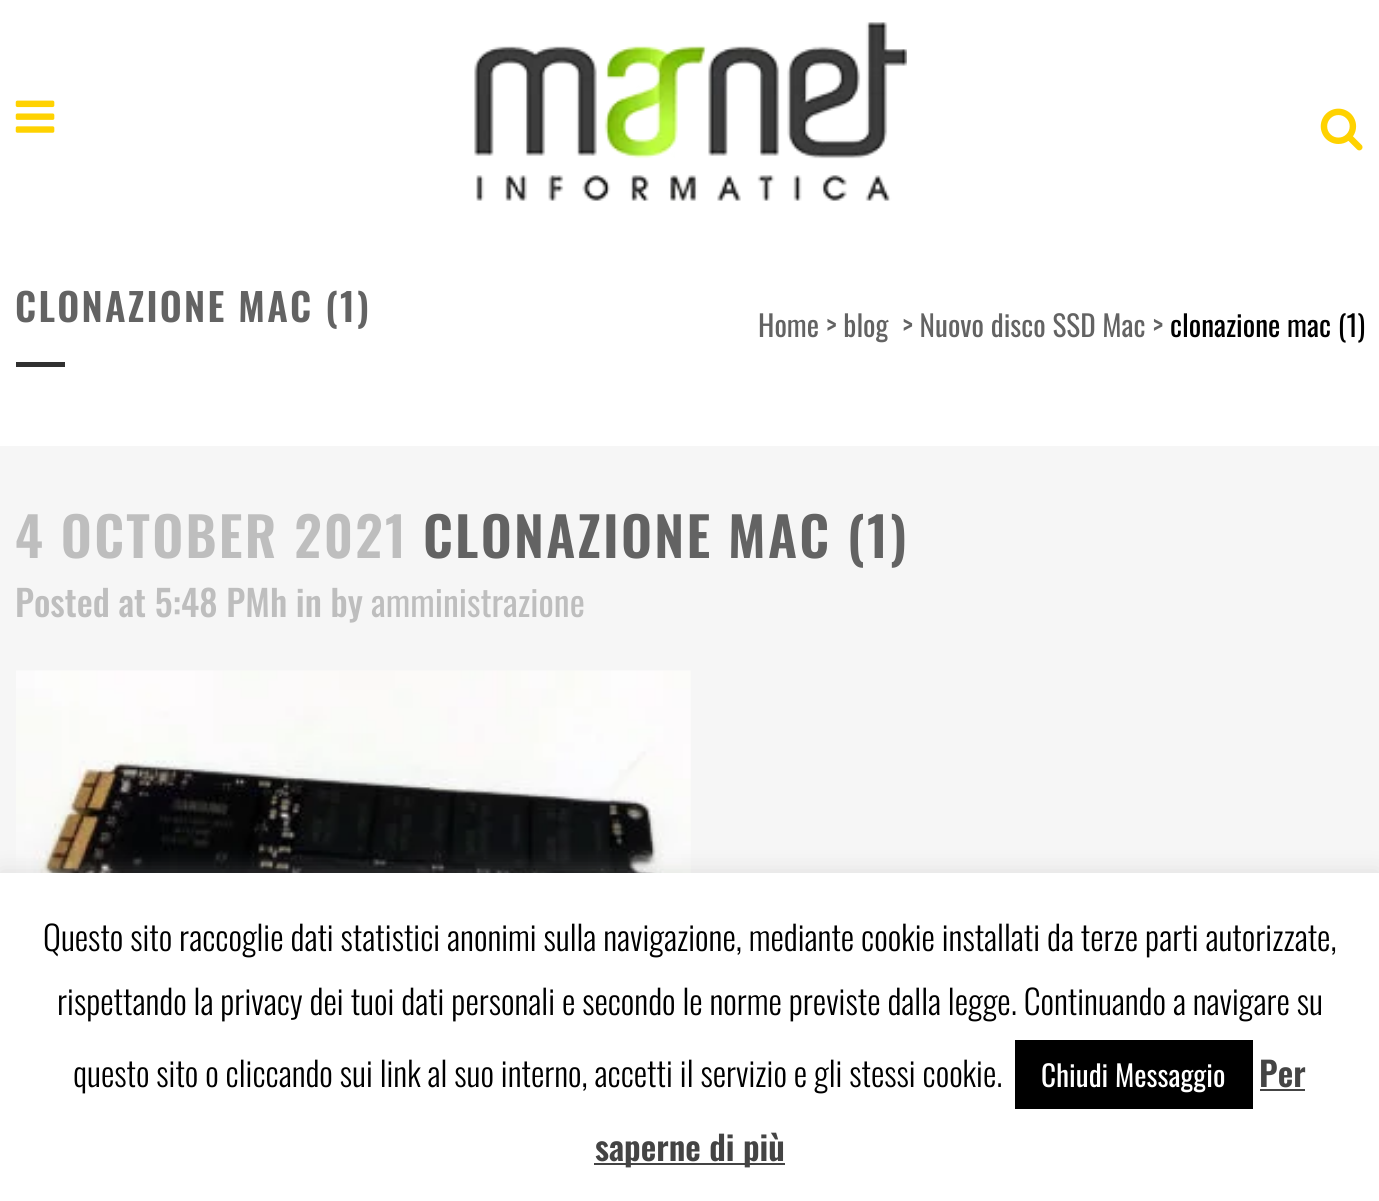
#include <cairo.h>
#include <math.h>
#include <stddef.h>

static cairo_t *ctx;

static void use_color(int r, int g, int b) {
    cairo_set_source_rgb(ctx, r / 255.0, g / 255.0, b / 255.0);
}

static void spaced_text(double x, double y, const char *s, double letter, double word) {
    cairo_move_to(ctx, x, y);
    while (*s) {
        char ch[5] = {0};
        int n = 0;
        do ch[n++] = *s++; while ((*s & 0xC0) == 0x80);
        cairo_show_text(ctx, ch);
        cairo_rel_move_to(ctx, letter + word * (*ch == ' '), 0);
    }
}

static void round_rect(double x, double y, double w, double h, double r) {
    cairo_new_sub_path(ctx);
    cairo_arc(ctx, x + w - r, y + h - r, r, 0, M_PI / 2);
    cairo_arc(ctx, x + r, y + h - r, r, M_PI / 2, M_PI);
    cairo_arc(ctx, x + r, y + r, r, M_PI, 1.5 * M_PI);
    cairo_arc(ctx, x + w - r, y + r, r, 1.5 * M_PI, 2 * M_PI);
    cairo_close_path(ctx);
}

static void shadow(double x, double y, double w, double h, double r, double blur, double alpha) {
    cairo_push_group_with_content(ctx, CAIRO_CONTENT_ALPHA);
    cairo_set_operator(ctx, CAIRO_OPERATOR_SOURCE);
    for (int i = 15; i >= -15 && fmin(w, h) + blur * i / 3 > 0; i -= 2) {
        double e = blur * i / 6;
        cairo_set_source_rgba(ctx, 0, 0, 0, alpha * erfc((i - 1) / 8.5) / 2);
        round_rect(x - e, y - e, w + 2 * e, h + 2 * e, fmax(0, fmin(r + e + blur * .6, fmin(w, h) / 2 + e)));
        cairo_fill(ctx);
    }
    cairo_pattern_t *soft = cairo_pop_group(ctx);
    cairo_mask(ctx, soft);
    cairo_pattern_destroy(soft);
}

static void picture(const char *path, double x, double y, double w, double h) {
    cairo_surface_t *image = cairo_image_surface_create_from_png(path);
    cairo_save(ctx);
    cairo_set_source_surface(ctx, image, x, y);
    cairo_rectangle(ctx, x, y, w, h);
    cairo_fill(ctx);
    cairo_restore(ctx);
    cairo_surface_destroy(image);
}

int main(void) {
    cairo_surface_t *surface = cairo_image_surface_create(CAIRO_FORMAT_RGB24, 1379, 1201);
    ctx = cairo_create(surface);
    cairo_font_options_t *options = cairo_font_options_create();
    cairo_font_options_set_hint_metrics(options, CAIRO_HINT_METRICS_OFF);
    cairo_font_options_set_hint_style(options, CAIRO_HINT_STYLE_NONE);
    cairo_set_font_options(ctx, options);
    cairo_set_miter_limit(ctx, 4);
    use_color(246, 246, 246);
    cairo_paint(ctx);
    use_color(255, 255, 255);
    cairo_rectangle(ctx, 0, 0, 1379, 446);
    cairo_fill(ctx);
    picture("img1.png", 15, 100, 40, 33);
    picture("img2.png", 474, 22, 433, 179);
    picture("img3.png", 1320, 108, 43, 43);
    cairo_select_font_face(ctx, "Oswald SemiBold", CAIRO_FONT_SLANT_NORMAL, CAIRO_FONT_WEIGHT_NORMAL);
    cairo_set_font_size(ctx, 38.25);
    use_color(99, 99, 99);
    spaced_text(15, 322, "CLONAZIONE MAC (1)", 2.25, 0);
    cairo_select_font_face(ctx, "Oswald", CAIRO_FONT_SLANT_NORMAL, CAIRO_FONT_WEIGHT_NORMAL);
    cairo_set_font_size(ctx, 29.25);
    cairo_move_to(ctx, 758, 337);
    cairo_show_text(ctx, "Home > blog");
    cairo_move_to(ctx, 902, 337);
    cairo_show_text(ctx, "> Nuovo disco SSD Mac >");
    use_color(0, 0, 0);
    cairo_move_to(ctx, 1170, 337);
    cairo_show_text(ctx, "clonazione mac (1)");
    use_color(48, 48, 48);
    cairo_rectangle(ctx, 16, 362, 49, 5);
    cairo_fill(ctx);
    cairo_select_font_face(ctx, "Oswald SemiBold", CAIRO_FONT_SLANT_NORMAL, CAIRO_FONT_WEIGHT_NORMAL);
    cairo_set_font_size(ctx, 54);
    use_color(190, 190, 190);
    spaced_text(15, 558, "4 OCTOBER 2021", 2.25, 0);
    use_color(99, 99, 99);
    spaced_text(423, 558, "CLONAZIONE MAC (1)", 2.25, 0);
    cairo_select_font_face(ctx, "Oswald Medium", CAIRO_FONT_SLANT_NORMAL, CAIRO_FONT_WEIGHT_NORMAL);
    cairo_set_font_size(ctx, 36);
    use_color(190, 190, 190);
    cairo_move_to(ctx, 15, 617);
    cairo_show_text(ctx, "Posted at 5:48 PMh in by");
    cairo_select_font_face(ctx, "Oswald", CAIRO_FONT_SLANT_NORMAL, CAIRO_FONT_WEIGHT_NORMAL);
    cairo_move_to(ctx, 371, 617);
    cairo_show_text(ctx, "amministrazione");
    picture("img4.png", 16, 670, 675, 203);
    use_color(172, 171, 171);
    shadow(0, 871, 1379, 328, 0, 11, 0.3);
    use_color(255, 255, 255);
    cairo_rectangle(ctx, 0, 873, 1379, 328);
    cairo_fill(ctx);
    cairo_select_font_face(ctx, "Oswald Light", CAIRO_FONT_SLANT_NORMAL, CAIRO_FONT_WEIGHT_NORMAL);
    cairo_set_font_size(ctx, 33.75);
    use_color(0, 0, 0);
    cairo_move_to(ctx, 43, 951);
    cairo_show_text(ctx, "Questo sito raccoglie dati statistici anonimi sulla navigazione, mediante cookie installati da terze parti autorizzate,");
    cairo_move_to(ctx, 57, 1015);
    cairo_show_text(ctx, "rispettando la privacy dei tuoi dati personali e secondo le norme previste dalla legge. Continuando a navigare su");
    cairo_move_to(ctx, 73, 1087);
    cairo_show_text(ctx, "questo sito o cliccando sui link al suo interno, accetti il servizio e gli stessi cookie.");
    cairo_rectangle(ctx, 1015, 1040, 238, 69);
    cairo_fill(ctx);
    cairo_select_font_face(ctx, "Oswald", CAIRO_FONT_SLANT_NORMAL, CAIRO_FONT_WEIGHT_NORMAL);
    cairo_set_font_size(ctx, 29.25);
    use_color(255, 255, 255);
    cairo_move_to(ctx, 1041, 1087);
    cairo_show_text(ctx, "Chiudi Messaggio");
    cairo_select_font_face(ctx, "Oswald SemiBold", CAIRO_FONT_SLANT_NORMAL, CAIRO_FONT_WEIGHT_NORMAL);
    cairo_set_font_size(ctx, 33.75);
    use_color(68, 68, 68);
    cairo_move_to(ctx, 1259, 1087);
    cairo_show_text(ctx, "Per");
    cairo_rectangle(ctx, 1260, 1089, 45, 2);
    cairo_fill(ctx);
    cairo_rectangle(ctx, 594, 1163, 191, 2);
    cairo_fill(ctx);
    cairo_move_to(ctx, 595, 1161);
    cairo_show_text(ctx, "saperne di più");
    cairo_surface_write_to_png(surface, "result.png");
    cairo_font_options_destroy(options);
    cairo_destroy(ctx);
    cairo_surface_destroy(surface);
    return 0;
}
